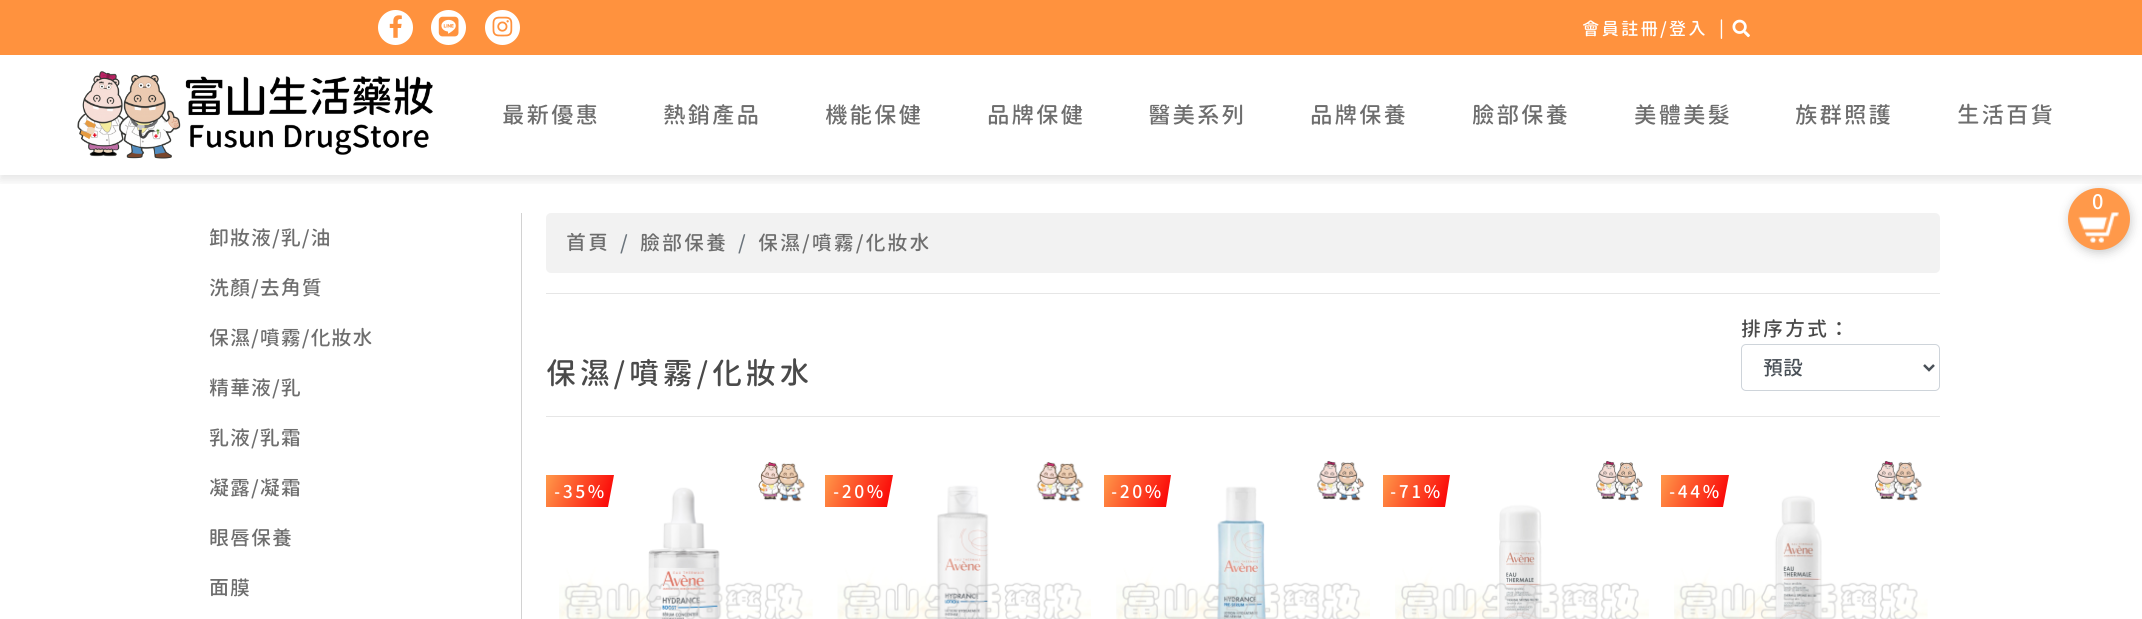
#include <cairo.h>
#include <math.h>
#include <stddef.h>

static cairo_t *ctx;

static void use_color(int r, int g, int b) {
    cairo_set_source_rgb(ctx, r / 255.0, g / 255.0, b / 255.0);
}

static void spaced_text(double x, double y, const char *s, double letter, double word) {
    cairo_move_to(ctx, x, y);
    while (*s) {
        char ch[5] = {0};
        int n = 0;
        do ch[n++] = *s++; while ((*s & 0xC0) == 0x80);
        cairo_show_text(ctx, ch);
        cairo_rel_move_to(ctx, letter + word * (*ch == ' '), 0);
    }
}

static void round_rect(double x, double y, double w, double h, double r) {
    cairo_new_sub_path(ctx);
    cairo_arc(ctx, x + w - r, y + h - r, r, 0, M_PI / 2);
    cairo_arc(ctx, x + r, y + h - r, r, M_PI / 2, M_PI);
    cairo_arc(ctx, x + r, y + r, r, M_PI, 1.5 * M_PI);
    cairo_arc(ctx, x + w - r, y + r, r, 1.5 * M_PI, 2 * M_PI);
    cairo_close_path(ctx);
}

static void shadow(double x, double y, double w, double h, double r, double blur, double alpha) {
    cairo_push_group_with_content(ctx, CAIRO_CONTENT_ALPHA);
    cairo_set_operator(ctx, CAIRO_OPERATOR_SOURCE);
    for (int i = 15; i >= -15 && fmin(w, h) + blur * i / 3 > 0; i -= 2) {
        double e = blur * i / 6;
        cairo_set_source_rgba(ctx, 0, 0, 0, alpha * erfc((i - 1) / 8.5) / 2);
        round_rect(x - e, y - e, w + 2 * e, h + 2 * e, fmax(0, fmin(r + e + blur * .6, fmin(w, h) / 2 + e)));
        cairo_fill(ctx);
    }
    cairo_pattern_t *soft = cairo_pop_group(ctx);
    cairo_mask(ctx, soft);
    cairo_pattern_destroy(soft);
}

static void picture(const char *path, double x, double y, double w, double h) {
    cairo_surface_t *image = cairo_image_surface_create_from_png(path);
    cairo_save(ctx);
    cairo_set_source_surface(ctx, image, x, y);
    cairo_rectangle(ctx, x, y, w, h);
    cairo_fill(ctx);
    cairo_restore(ctx);
    cairo_surface_destroy(image);
}

int main(void) {
    cairo_surface_t *surface = cairo_image_surface_create(CAIRO_FORMAT_RGB24, 2142, 619);
    ctx = cairo_create(surface);
    cairo_font_options_t *options = cairo_font_options_create();
    cairo_font_options_set_hint_metrics(options, CAIRO_HINT_METRICS_OFF);
    cairo_font_options_set_hint_style(options, CAIRO_HINT_STYLE_NONE);
    cairo_set_font_options(ctx, options);
    cairo_set_miter_limit(ctx, 4);
    cairo_pattern_t *gradient;
    use_color(255, 255, 255);
    cairo_paint(ctx);
    use_color(255, 146, 62);
    cairo_rectangle(ctx, 0, 0, 2142, 55);
    cairo_fill(ctx);
    cairo_save(ctx);
    cairo_rectangle(ctx, 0, 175, 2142, 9);
    cairo_clip(ctx);
    use_color(0, 0, 0);
    shadow(0, 60, 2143, 120, 0, 5, 0.1);
    cairo_restore(ctx);
    use_color(255, 255, 255);
    cairo_arc(ctx, 395.5, 27.5, 17.5, 0, 2 * M_PI);
    cairo_fill(ctx);
    picture("img1.png", 389, 15, 13, 23);
    cairo_arc(ctx, 448.5, 27.5, 17.5, 0, 2 * M_PI);
    cairo_fill(ctx);
    picture("img2.png", 438, 16, 21, 21);
    cairo_arc(ctx, 502.5, 27.5, 17.5, 0, 2 * M_PI);
    cairo_fill(ctx);
    picture("img3.png", 492, 16, 21, 21);
    cairo_select_font_face(ctx, "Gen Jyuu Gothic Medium", CAIRO_FONT_SLANT_NORMAL, CAIRO_FONT_WEIGHT_NORMAL);
    cairo_set_font_size(ctx, 17.5);
    spaced_text(1582, 35, "會員註冊/登入", 2, 0);
    spaced_text(1719, 34, "|", 2, 0);
    picture("img4.png", 1732, 19, 18, 19);
    picture("img5.png", 77, 71, 356, 88);
    cairo_set_font_size(ctx, 22.5);
    use_color(110, 110, 110);
    spaced_text(502, 123, "最新優惠", 2, 0);
    spaced_text(663, 123, "熱銷產品", 2, 0);
    spaced_text(825, 123, "機能保健", 2, 0);
    spaced_text(987, 123, "品牌保健", 2, 0);
    spaced_text(1148, 123, "醫美系列", 2, 0);
    spaced_text(1310, 123, "品牌保養", 2, 0);
    spaced_text(1472, 123, "臉部保養", 2, 0);
    spaced_text(1634, 123, "美體美髮", 2, 0);
    spaced_text(1795, 123, "族群照護", 2, 0);
    spaced_text(1957, 123, "生活百貨", 2, 0);
    use_color(0, 0, 0);
    shadow(2069, 190, 62, 63, 31, 5, 0.2);
    use_color(255, 153, 74);
    cairo_arc(ctx, 2099, 219, 31, 0, 2 * M_PI);
    cairo_fill(ctx);
    cairo_set_font_size(ctx, 20);
    use_color(255, 255, 255);
    spaced_text(2092, 209, "0", 2, 0);
    picture("img6.png", 2078, 212, 41, 31);
    use_color(110, 110, 110);
    spaced_text(209, 245, "卸妝液/乳/油", 1, 0);
    spaced_text(209, 295, "洗顏/去角質", 1, 0);
    spaced_text(209, 345, "保濕/噴霧/化妝水", 1, 0);
    spaced_text(209, 395, "精華液/乳", 1, 0);
    spaced_text(209, 445, "乳液/乳霜", 1, 0);
    spaced_text(209, 495, "凝露/凝霜", 1, 0);
    spaced_text(209, 545, "眼唇保養", 1, 0);
    spaced_text(209, 595, "面膜", 1, 0);
    use_color(210, 210, 210);
    cairo_rectangle(ctx, 521, 213, 1, 406);
    cairo_fill(ctx);
    use_color(242, 242, 242);
    round_rect(546, 213, 1394, 60, 5);
    cairo_fill(ctx);
    use_color(110, 110, 110);
    spaced_text(566, 250, "首頁", 2, 0);
    use_color(108, 117, 125);
    spaced_text(620, 250, "/", 2, 0);
    use_color(110, 110, 110);
    spaced_text(640, 250, "臉部保養", 2, 0);
    use_color(108, 117, 125);
    spaced_text(738, 250, "/", 2, 0);
    use_color(110, 110, 110);
    spaced_text(758, 250, "保濕/噴霧/化妝水", 2, 0);
    use_color(230, 230, 230);
    cairo_rectangle(ctx, 546, 293, 1394, 1);
    cairo_fill(ctx);
    cairo_rectangle(ctx, 546, 416, 1394, 1);
    cairo_fill(ctx);
    cairo_set_font_size(ctx, 30);
    use_color(74, 74, 74);
    spaced_text(546, 384, "保濕/噴霧/化妝水", 3.75, 0);
    cairo_set_font_size(ctx, 20);
    spaced_text(1741, 336, "排序方式：", 2, 0);
    round_rect(1741.5, 344.5, 198, 46, 4.5);
    use_color(206, 212, 218);
    cairo_set_line_width(ctx, 1);
    cairo_stroke(ctx);
    cairo_new_path(ctx);
    cairo_move_to(ctx, 1924, 365);
    cairo_line_to(ctx, 1929, 370);
    cairo_line_to(ctx, 1934, 365);
    use_color(73, 80, 87);
    cairo_set_line_width(ctx, 2.5);
    cairo_stroke(ctx);
    cairo_move_to(ctx, 1763, 375);
    cairo_show_text(ctx, "預設");
    picture("img7.png", 559, 462, 254, 157);
    cairo_save(ctx);
    cairo_rectangle(ctx, 546, 443, 279, 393);
    cairo_clip(ctx);
    gradient = cairo_pattern_create_linear(545, 478, 610, 504);
    cairo_pattern_add_color_stop_rgba(gradient, 0, 1, 0.6, 0.29, 1);
    cairo_pattern_add_color_stop_rgba(gradient, 1, 0.984, 0.024, 0.027, 1);
    cairo_set_source(ctx, gradient);
    cairo_pattern_destroy(gradient);
    cairo_new_path(ctx);
    cairo_move_to(ctx, 546, 475);
    cairo_line_to(ctx, 614, 475);
    cairo_line_to(ctx, 608, 507);
    cairo_line_to(ctx, 541, 507);
    cairo_close_path(ctx);
    cairo_fill(ctx);
    cairo_restore(ctx);
    cairo_set_font_size(ctx, 17.5);
    use_color(255, 255, 255);
    spaced_text(554, 498, "-35%", 2.5, 0);
    picture("img8.png", 837, 462, 254, 157);
    cairo_save(ctx);
    cairo_rectangle(ctx, 825, 443, 279, 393);
    cairo_clip(ctx);
    gradient = cairo_pattern_create_linear(823, 478, 889, 504);
    cairo_pattern_add_color_stop_rgba(gradient, 0, 1, 0.6, 0.29, 1);
    cairo_pattern_add_color_stop_rgba(gradient, 1, 0.984, 0.024, 0.027, 1);
    cairo_set_source(ctx, gradient);
    cairo_pattern_destroy(gradient);
    cairo_new_path(ctx);
    cairo_move_to(ctx, 825, 475);
    cairo_line_to(ctx, 893, 475);
    cairo_line_to(ctx, 887, 507);
    cairo_line_to(ctx, 819, 507);
    cairo_close_path(ctx);
    cairo_fill(ctx);
    cairo_restore(ctx);
    spaced_text(833, 498, "-20%", 2.5, 0);
    picture("img9.png", 1116, 461, 254, 158);
    cairo_save(ctx);
    cairo_rectangle(ctx, 1104, 443, 279, 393);
    cairo_clip(ctx);
    gradient = cairo_pattern_create_linear(1102, 478, 1167, 504);
    cairo_pattern_add_color_stop_rgba(gradient, 0, 1, 0.6, 0.29, 1);
    cairo_pattern_add_color_stop_rgba(gradient, 1, 0.984, 0.024, 0.027, 1);
    cairo_set_source(ctx, gradient);
    cairo_pattern_destroy(gradient);
    cairo_new_path(ctx);
    cairo_move_to(ctx, 1104, 475);
    cairo_line_to(ctx, 1171, 475);
    cairo_line_to(ctx, 1166, 507);
    cairo_line_to(ctx, 1098, 507);
    cairo_close_path(ctx);
    cairo_fill(ctx);
    cairo_restore(ctx);
    spaced_text(1111, 498, "-20%", 2.5, 0);
    picture("img10.png", 1395, 461, 254, 158);
    cairo_save(ctx);
    cairo_rectangle(ctx, 1383, 443, 278, 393);
    cairo_clip(ctx);
    gradient = cairo_pattern_create_linear(1381, 478, 1446, 504);
    cairo_pattern_add_color_stop_rgba(gradient, 0, 1, 0.6, 0.29, 1);
    cairo_pattern_add_color_stop_rgba(gradient, 1, 0.984, 0.024, 0.027, 1);
    cairo_set_source(ctx, gradient);
    cairo_pattern_destroy(gradient);
    cairo_new_path(ctx);
    cairo_move_to(ctx, 1382, 475);
    cairo_line_to(ctx, 1450, 475);
    cairo_line_to(ctx, 1445, 507);
    cairo_line_to(ctx, 1377, 507);
    cairo_close_path(ctx);
    cairo_fill(ctx);
    cairo_restore(ctx);
    spaced_text(1390, 498, "-71%", 2.5, 0);
    picture("img11.png", 1674, 461, 254, 158);
    cairo_save(ctx);
    cairo_rectangle(ctx, 1661, 443, 279, 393);
    cairo_clip(ctx);
    gradient = cairo_pattern_create_linear(1660, 478, 1725, 504);
    cairo_pattern_add_color_stop_rgba(gradient, 0, 1, 0.6, 0.29, 1);
    cairo_pattern_add_color_stop_rgba(gradient, 1, 0.984, 0.024, 0.027, 1);
    cairo_set_source(ctx, gradient);
    cairo_pattern_destroy(gradient);
    cairo_new_path(ctx);
    cairo_move_to(ctx, 1661, 475);
    cairo_line_to(ctx, 1729, 475);
    cairo_line_to(ctx, 1723, 507);
    cairo_line_to(ctx, 1656, 507);
    cairo_close_path(ctx);
    cairo_fill(ctx);
    cairo_restore(ctx);
    spaced_text(1669, 498, "-44%", 2.5, 0);
    cairo_surface_write_to_png(surface, "result.png");
    cairo_font_options_destroy(options);
    cairo_destroy(ctx);
    cairo_surface_destroy(surface);
    return 0;
}
